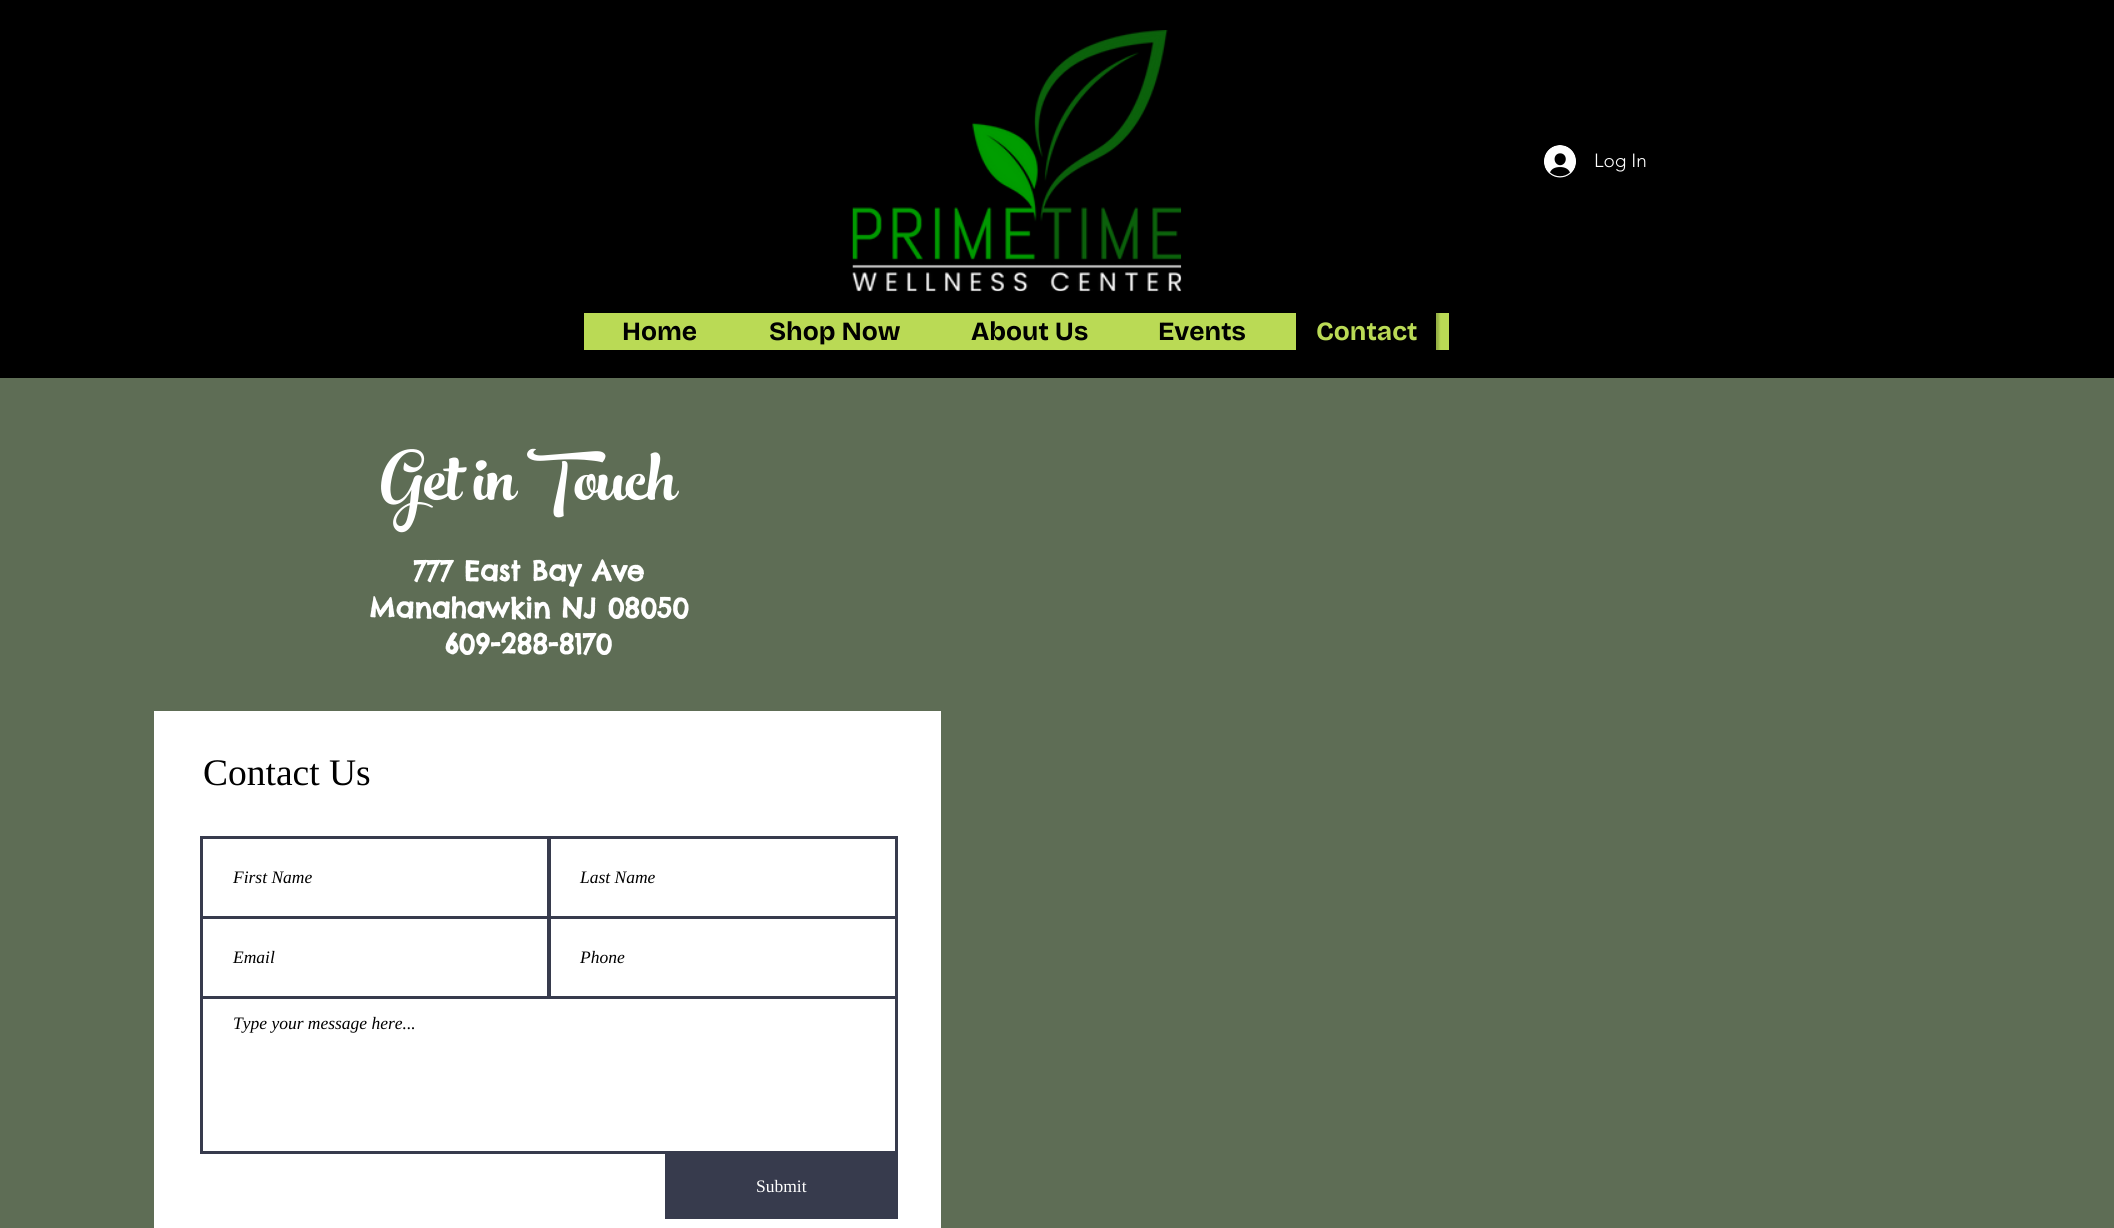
#include <cairo.h>
#include <math.h>
#include <stddef.h>

static cairo_t *ctx;

static void use_color(int r, int g, int b) {
    cairo_set_source_rgb(ctx, r / 255.0, g / 255.0, b / 255.0);
}

static void round_rect(double x, double y, double w, double h, double r) {
    cairo_new_sub_path(ctx);
    cairo_arc(ctx, x + w - r, y + h - r, r, 0, M_PI / 2);
    cairo_arc(ctx, x + r, y + h - r, r, M_PI / 2, M_PI);
    cairo_arc(ctx, x + r, y + r, r, M_PI, 1.5 * M_PI);
    cairo_arc(ctx, x + w - r, y + r, r, 1.5 * M_PI, 2 * M_PI);
    cairo_close_path(ctx);
}

static void shadow(double x, double y, double w, double h, double r, double blur, double alpha) {
    cairo_push_group_with_content(ctx, CAIRO_CONTENT_ALPHA);
    cairo_set_operator(ctx, CAIRO_OPERATOR_SOURCE);
    for (int i = 15; i >= -15 && fmin(w, h) + blur * i / 3 > 0; i -= 2) {
        double e = blur * i / 6;
        cairo_set_source_rgba(ctx, 0, 0, 0, alpha * erfc((i - 1) / 8.5) / 2);
        round_rect(x - e, y - e, w + 2 * e, h + 2 * e, fmax(0, fmin(r + e + blur * .6, fmin(w, h) / 2 + e)));
        cairo_fill(ctx);
    }
    cairo_pattern_t *soft = cairo_pop_group(ctx);
    cairo_mask(ctx, soft);
    cairo_pattern_destroy(soft);
}

static void picture(const char *path, double x, double y, double w, double h) {
    cairo_surface_t *image = cairo_image_surface_create_from_png(path);
    cairo_save(ctx);
    cairo_set_source_surface(ctx, image, x, y);
    cairo_rectangle(ctx, x, y, w, h);
    cairo_fill(ctx);
    cairo_restore(ctx);
    cairo_surface_destroy(image);
}

int main(void) {
    cairo_surface_t *surface = cairo_image_surface_create(CAIRO_FORMAT_RGB24, 2114, 1228);
    ctx = cairo_create(surface);
    cairo_font_options_t *options = cairo_font_options_create();
    cairo_font_options_set_hint_metrics(options, CAIRO_HINT_METRICS_OFF);
    cairo_font_options_set_hint_style(options, CAIRO_HINT_STYLE_NONE);
    cairo_set_font_options(ctx, options);
    cairo_set_miter_limit(ctx, 4);
    use_color(0, 0, 0);
    cairo_paint(ctx);
    picture("img1.png", 852, 30, 330, 262);
    picture("img2.png", 1544, 145, 32, 33);
    cairo_select_font_face(ctx, "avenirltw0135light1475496 Light", CAIRO_FONT_SLANT_NORMAL, CAIRO_FONT_WEIGHT_NORMAL);
    cairo_set_font_size(ctx, 19);
    use_color(255, 255, 255);
    cairo_move_to(ctx, 1594, 167);
    cairo_show_text(ctx, "Log In");
    use_color(186, 218, 85);
    cairo_rectangle(ctx, 584, 313, 865, 37);
    cairo_fill(ctx);
    cairo_select_font_face(ctx, "Bricolage Grotesque", CAIRO_FONT_SLANT_NORMAL, CAIRO_FONT_WEIGHT_BOLD);
    cairo_set_font_size(ctx, 26.25);
    use_color(0, 0, 0);
    cairo_move_to(ctx, 622, 340);
    cairo_show_text(ctx, "Home");
    cairo_move_to(ctx, 769, 340);
    cairo_show_text(ctx, "Shop Now");
    cairo_move_to(ctx, 971, 340);
    cairo_show_text(ctx, "About Us");
    cairo_move_to(ctx, 1158, 340);
    cairo_show_text(ctx, "Events");
    use_color(0, 0, 0);
    shadow(1299, 300, 140, 63, 0, 1, 0.2);
    use_color(0, 0, 0);
    cairo_rectangle(ctx, 1296, 313, 140, 37);
    cairo_fill(ctx);
    use_color(186, 218, 85);
    cairo_move_to(ctx, 1316, 340);
    cairo_show_text(ctx, "Contact");
    use_color(94, 109, 85);
    cairo_rectangle(ctx, 0, 378, 2114, 850);
    cairo_fill(ctx);
    cairo_select_font_face(ctx, "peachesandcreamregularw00", CAIRO_FONT_SLANT_NORMAL, CAIRO_FONT_WEIGHT_NORMAL);
    cairo_set_font_size(ctx, 100);
    use_color(255, 255, 255);
    cairo_move_to(ctx, 381, 500);
    cairo_show_text(ctx, "Get in Touch");
    cairo_select_font_face(ctx, "Chelsea Market", CAIRO_FONT_SLANT_NORMAL, CAIRO_FONT_WEIGHT_BOLD);
    cairo_set_font_size(ctx, 27.5);
    cairo_move_to(ctx, 413, 581);
    cairo_show_text(ctx, "777 East Bay Ave");
    cairo_move_to(ctx, 369, 618);
    cairo_show_text(ctx, "Manahawkin NJ 08050");
    cairo_move_to(ctx, 445, 654);
    cairo_show_text(ctx, "609-288-8170");
    cairo_rectangle(ctx, 154, 711, 787, 517);
    cairo_fill(ctx);
    cairo_select_font_face(ctx, "Liberation Serif", CAIRO_FONT_SLANT_NORMAL, CAIRO_FONT_WEIGHT_NORMAL);
    cairo_set_font_size(ctx, 37.5);
    use_color(0, 0, 0);
    cairo_move_to(ctx, 203, 785);
    cairo_show_text(ctx, "Contact Us");
    cairo_rectangle(ctx, 201.5, 837.5, 347, 80);
    use_color(55, 59, 77);
    cairo_set_line_width(ctx, 3);
    cairo_stroke(ctx);
    cairo_select_font_face(ctx, "Liberation Serif", CAIRO_FONT_SLANT_ITALIC, CAIRO_FONT_WEIGHT_NORMAL);
    cairo_set_font_size(ctx, 17.5);
    use_color(0, 0, 0);
    cairo_move_to(ctx, 233, 883);
    cairo_show_text(ctx, "First Name");
    cairo_rectangle(ctx, 549.5, 837.5, 347, 80);
    use_color(55, 59, 77);
    cairo_stroke(ctx);
    use_color(0, 0, 0);
    cairo_move_to(ctx, 580, 883);
    cairo_show_text(ctx, "Last Name");
    cairo_rectangle(ctx, 201.5, 917.5, 347, 80);
    use_color(55, 59, 77);
    cairo_stroke(ctx);
    use_color(0, 0, 0);
    cairo_move_to(ctx, 233, 963);
    cairo_show_text(ctx, "Email");
    cairo_rectangle(ctx, 549.5, 917.5, 347, 80);
    use_color(55, 59, 77);
    cairo_stroke(ctx);
    use_color(0, 0, 0);
    cairo_move_to(ctx, 580, 963);
    cairo_show_text(ctx, "Phone");
    cairo_rectangle(ctx, 201.5, 997.5, 695, 155);
    use_color(55, 59, 77);
    cairo_stroke(ctx);
    use_color(0, 0, 0);
    cairo_move_to(ctx, 233, 1029);
    cairo_show_text(ctx, "Type your message here...");
    use_color(55, 59, 77);
    cairo_rectangle(ctx, 665, 1154, 233, 65);
    cairo_fill(ctx);
    cairo_select_font_face(ctx, "Liberation Serif", CAIRO_FONT_SLANT_NORMAL, CAIRO_FONT_WEIGHT_NORMAL);
    use_color(255, 255, 255);
    cairo_move_to(ctx, 756, 1192);
    cairo_show_text(ctx, "Submit");
    cairo_surface_write_to_png(surface, "result.png");
    cairo_font_options_destroy(options);
    cairo_destroy(ctx);
    cairo_surface_destroy(surface);
    return 0;
}
